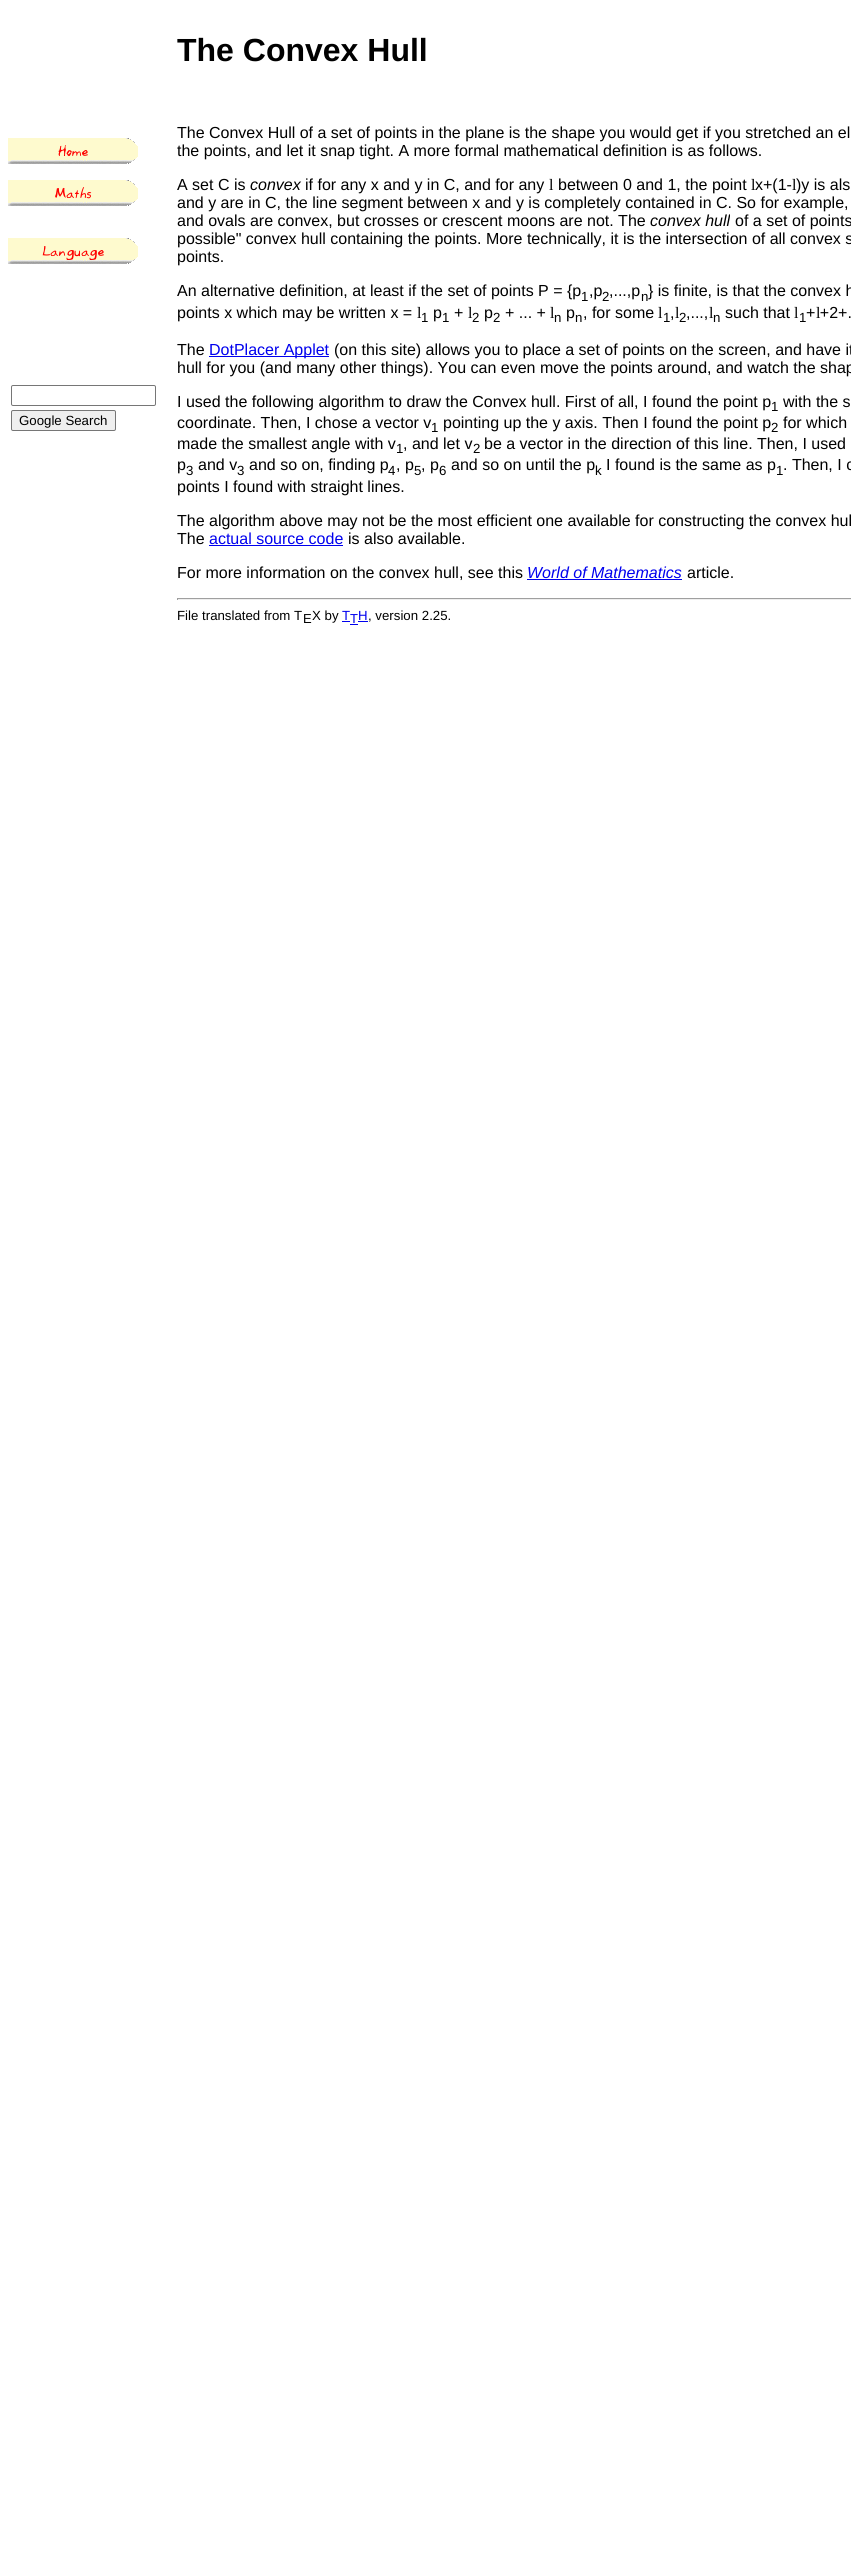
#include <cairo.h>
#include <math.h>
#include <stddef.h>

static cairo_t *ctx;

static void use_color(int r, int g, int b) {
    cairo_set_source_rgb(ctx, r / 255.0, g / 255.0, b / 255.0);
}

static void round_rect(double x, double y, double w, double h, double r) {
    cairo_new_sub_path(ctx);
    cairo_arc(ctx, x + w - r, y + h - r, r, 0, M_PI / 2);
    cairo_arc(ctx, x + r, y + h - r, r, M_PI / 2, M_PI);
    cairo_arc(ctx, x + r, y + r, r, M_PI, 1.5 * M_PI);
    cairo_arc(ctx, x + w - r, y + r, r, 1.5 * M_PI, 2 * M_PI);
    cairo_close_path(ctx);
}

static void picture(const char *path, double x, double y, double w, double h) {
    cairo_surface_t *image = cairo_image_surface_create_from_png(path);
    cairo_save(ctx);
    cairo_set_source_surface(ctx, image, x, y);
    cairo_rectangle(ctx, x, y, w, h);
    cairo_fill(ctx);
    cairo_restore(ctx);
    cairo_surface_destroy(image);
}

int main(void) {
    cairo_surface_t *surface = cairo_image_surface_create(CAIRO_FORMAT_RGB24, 851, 2550);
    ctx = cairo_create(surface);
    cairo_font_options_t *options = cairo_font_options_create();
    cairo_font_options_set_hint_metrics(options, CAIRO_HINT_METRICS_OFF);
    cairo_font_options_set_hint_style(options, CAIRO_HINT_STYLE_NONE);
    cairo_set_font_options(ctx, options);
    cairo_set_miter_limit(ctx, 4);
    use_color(255, 255, 255);
    cairo_paint(ctx);
    picture("img1.png", 8, 138, 130, 26);
    picture("img2.png", 8, 180, 130, 26);
    picture("img3.png", 8, 238, 130, 26);
    round_rect(11.5, 385.5, 144, 20, 1.5);
    use_color(118, 118, 118);
    cairo_set_line_width(ctx, 1);
    cairo_stroke(ctx);
    use_color(239, 239, 239);
    round_rect(11.5, 410.5, 104, 20, 1.5);
    cairo_fill_preserve(ctx);
    use_color(118, 118, 118);
    cairo_stroke(ctx);
    cairo_select_font_face(ctx, "Liberation Sans", CAIRO_FONT_SLANT_NORMAL, CAIRO_FONT_WEIGHT_NORMAL);
    cairo_set_font_size(ctx, 13.25);
    use_color(0, 0, 0);
    cairo_move_to(ctx, 19, 425);
    cairo_show_text(ctx, "Google Search");
    cairo_select_font_face(ctx, "Liberation Sans", CAIRO_FONT_SLANT_NORMAL, CAIRO_FONT_WEIGHT_BOLD);
    cairo_set_font_size(ctx, 32);
    cairo_move_to(ctx, 177, 61);
    cairo_show_text(ctx, "The Convex Hull");
    cairo_select_font_face(ctx, "Liberation Sans", CAIRO_FONT_SLANT_NORMAL, CAIRO_FONT_WEIGHT_NORMAL);
    cairo_set_font_size(ctx, 16);
    cairo_move_to(ctx, 177, 138);
    cairo_show_text(ctx, "The Convex Hull of a set of points in the plane is the shape you would get if you stretched an el");
    cairo_move_to(ctx, 177, 156);
    cairo_show_text(ctx, "the points, and let it snap tight. A more formal mathematical definition is as follows.");
    cairo_move_to(ctx, 177, 190);
    cairo_show_text(ctx, "A set C is");
    cairo_select_font_face(ctx, "Liberation Sans", CAIRO_FONT_SLANT_ITALIC, CAIRO_FONT_WEIGHT_NORMAL);
    cairo_move_to(ctx, 250, 190);
    cairo_show_text(ctx, "convex");
    cairo_select_font_face(ctx, "Liberation Sans", CAIRO_FONT_SLANT_NORMAL, CAIRO_FONT_WEIGHT_NORMAL);
    cairo_move_to(ctx, 305, 190);
    cairo_show_text(ctx, "if for any x and y in C, and for any");
    cairo_select_font_face(ctx, "Liberation Serif", CAIRO_FONT_SLANT_NORMAL, CAIRO_FONT_WEIGHT_NORMAL);
    cairo_move_to(ctx, 549, 190);
    cairo_show_text(ctx, "l");
    cairo_select_font_face(ctx, "Liberation Sans", CAIRO_FONT_SLANT_NORMAL, CAIRO_FONT_WEIGHT_NORMAL);
    cairo_move_to(ctx, 558, 190);
    cairo_show_text(ctx, "between 0 and 1, the point");
    cairo_select_font_face(ctx, "Liberation Serif", CAIRO_FONT_SLANT_NORMAL, CAIRO_FONT_WEIGHT_NORMAL);
    cairo_move_to(ctx, 751, 190);
    cairo_show_text(ctx, "l");
    cairo_select_font_face(ctx, "Liberation Sans", CAIRO_FONT_SLANT_NORMAL, CAIRO_FONT_WEIGHT_NORMAL);
    cairo_move_to(ctx, 755, 190);
    cairo_show_text(ctx, "x+(1-");
    cairo_select_font_face(ctx, "Liberation Serif", CAIRO_FONT_SLANT_NORMAL, CAIRO_FONT_WEIGHT_NORMAL);
    cairo_move_to(ctx, 792, 190);
    cairo_show_text(ctx, "l");
    cairo_select_font_face(ctx, "Liberation Sans", CAIRO_FONT_SLANT_NORMAL, CAIRO_FONT_WEIGHT_NORMAL);
    cairo_move_to(ctx, 796, 190);
    cairo_show_text(ctx, ")y is als");
    cairo_move_to(ctx, 177, 208);
    cairo_show_text(ctx, "and y are in C, the line segment between x and y is completely contained in C. So for example,");
    cairo_move_to(ctx, 177, 226);
    cairo_show_text(ctx, "and ovals are convex, but crosses or crescent moons are not. The");
    cairo_select_font_face(ctx, "Liberation Sans", CAIRO_FONT_SLANT_ITALIC, CAIRO_FONT_WEIGHT_NORMAL);
    cairo_move_to(ctx, 650, 226);
    cairo_show_text(ctx, "convex hull");
    cairo_select_font_face(ctx, "Liberation Sans", CAIRO_FONT_SLANT_NORMAL, CAIRO_FONT_WEIGHT_NORMAL);
    cairo_move_to(ctx, 735, 226);
    cairo_show_text(ctx, "of a set of points");
    cairo_move_to(ctx, 177, 244);
    cairo_show_text(ctx, "possible\" convex hull containing the points. More technically, it is the intersection of all convex s");
    cairo_move_to(ctx, 177, 262);
    cairo_show_text(ctx, "points.");
    cairo_move_to(ctx, 177, 296);
    cairo_show_text(ctx, "An alternative definition, at least if the set of points P = {p");
    cairo_set_font_size(ctx, 13.25);
    cairo_move_to(ctx, 581, 301);
    cairo_show_text(ctx, "1");
    cairo_set_font_size(ctx, 16);
    cairo_move_to(ctx, 589, 296);
    cairo_show_text(ctx, ",p");
    cairo_set_font_size(ctx, 13.25);
    cairo_move_to(ctx, 602, 301);
    cairo_show_text(ctx, "2");
    cairo_set_font_size(ctx, 16);
    cairo_move_to(ctx, 609, 296);
    cairo_show_text(ctx, ",...,p");
    cairo_set_font_size(ctx, 13.25);
    cairo_move_to(ctx, 641, 301);
    cairo_show_text(ctx, "n");
    cairo_set_font_size(ctx, 16);
    cairo_move_to(ctx, 648, 296);
    cairo_show_text(ctx, "} is finite, is that the convex h");
    cairo_move_to(ctx, 177, 318);
    cairo_show_text(ctx, "points x which may be written x =");
    cairo_select_font_face(ctx, "Liberation Serif", CAIRO_FONT_SLANT_NORMAL, CAIRO_FONT_WEIGHT_NORMAL);
    cairo_move_to(ctx, 417, 318);
    cairo_show_text(ctx, "l");
    cairo_move_to(ctx, 468, 318);
    cairo_show_text(ctx, "l");
    cairo_move_to(ctx, 550, 318);
    cairo_show_text(ctx, "l");
    cairo_select_font_face(ctx, "Liberation Sans", CAIRO_FONT_SLANT_NORMAL, CAIRO_FONT_WEIGHT_NORMAL);
    cairo_move_to(ctx, 583, 318);
    cairo_show_text(ctx, ", for some");
    cairo_select_font_face(ctx, "Liberation Serif", CAIRO_FONT_SLANT_NORMAL, CAIRO_FONT_WEIGHT_NORMAL);
    cairo_move_to(ctx, 658, 318);
    cairo_show_text(ctx, "l");
    cairo_move_to(ctx, 675, 318);
    cairo_show_text(ctx, "l");
    cairo_move_to(ctx, 709, 318);
    cairo_show_text(ctx, "l");
    cairo_select_font_face(ctx, "Liberation Sans", CAIRO_FONT_SLANT_NORMAL, CAIRO_FONT_WEIGHT_NORMAL);
    cairo_move_to(ctx, 725, 318);
    cairo_show_text(ctx, "such that");
    cairo_select_font_face(ctx, "Liberation Serif", CAIRO_FONT_SLANT_NORMAL, CAIRO_FONT_WEIGHT_NORMAL);
    cairo_move_to(ctx, 794, 318);
    cairo_show_text(ctx, "l");
    cairo_select_font_face(ctx, "Liberation Sans", CAIRO_FONT_SLANT_NORMAL, CAIRO_FONT_WEIGHT_NORMAL);
    cairo_move_to(ctx, 806, 318);
    cairo_show_text(ctx, "+ +2+.");
    cairo_set_font_size(ctx, 13.25);
    cairo_move_to(ctx, 421, 322);
    cairo_show_text(ctx, "1");
    cairo_set_font_size(ctx, 16);
    cairo_move_to(ctx, 433, 318);
    cairo_show_text(ctx, "p");
    cairo_set_font_size(ctx, 13.25);
    cairo_move_to(ctx, 442, 322);
    cairo_show_text(ctx, "1");
    cairo_set_font_size(ctx, 16);
    cairo_move_to(ctx, 454, 318);
    cairo_show_text(ctx, "+");
    cairo_set_font_size(ctx, 13.25);
    cairo_move_to(ctx, 472, 322);
    cairo_show_text(ctx, "2");
    cairo_set_font_size(ctx, 16);
    cairo_move_to(ctx, 484, 318);
    cairo_show_text(ctx, "p");
    cairo_set_font_size(ctx, 13.25);
    cairo_move_to(ctx, 493, 322);
    cairo_show_text(ctx, "2");
    cairo_set_font_size(ctx, 16);
    cairo_move_to(ctx, 505, 318);
    cairo_show_text(ctx, "+ ... +");
    cairo_set_font_size(ctx, 13.25);
    cairo_move_to(ctx, 554, 322);
    cairo_show_text(ctx, "n");
    cairo_set_font_size(ctx, 16);
    cairo_move_to(ctx, 566, 318);
    cairo_show_text(ctx, "p");
    cairo_set_font_size(ctx, 13.25);
    cairo_move_to(ctx, 575, 322);
    cairo_show_text(ctx, "n");
    cairo_move_to(ctx, 663, 322);
    cairo_show_text(ctx, "1");
    cairo_set_font_size(ctx, 16);
    cairo_move_to(ctx, 670, 318);
    cairo_show_text(ctx, ",");
    cairo_set_font_size(ctx, 13.25);
    cairo_move_to(ctx, 679, 322);
    cairo_show_text(ctx, "2");
    cairo_set_font_size(ctx, 16);
    cairo_move_to(ctx, 686, 318);
    cairo_show_text(ctx, ",...,");
    cairo_set_font_size(ctx, 13.25);
    cairo_move_to(ctx, 713, 322);
    cairo_show_text(ctx, "n");
    cairo_move_to(ctx, 799, 322);
    cairo_show_text(ctx, "1");
    cairo_select_font_face(ctx, "Liberation Serif", CAIRO_FONT_SLANT_NORMAL, CAIRO_FONT_WEIGHT_NORMAL);
    cairo_set_font_size(ctx, 16);
    cairo_move_to(ctx, 816, 318);
    cairo_show_text(ctx, "l");
    cairo_select_font_face(ctx, "Liberation Sans", CAIRO_FONT_SLANT_NORMAL, CAIRO_FONT_WEIGHT_NORMAL);
    cairo_move_to(ctx, 177, 355);
    cairo_show_text(ctx, "The");
    use_color(0, 0, 238);
    cairo_rectangle(ctx, 209, 356, 120, 1);
    cairo_fill(ctx);
    cairo_move_to(ctx, 209, 355);
    cairo_show_text(ctx, "DotPlacer Applet");
    use_color(0, 0, 0);
    cairo_move_to(ctx, 334, 355);
    cairo_show_text(ctx, "(on this site) allows you to place a set of points on the screen, and have it");
    cairo_move_to(ctx, 177, 373);
    cairo_show_text(ctx, "hull for you (and many other things). You can even move the points around, and watch the shap");
    cairo_move_to(ctx, 177, 407);
    cairo_show_text(ctx, "I used the following algorithm to draw the Convex hull. First of all, I found the point p");
    cairo_set_font_size(ctx, 13.25);
    cairo_move_to(ctx, 771, 411);
    cairo_show_text(ctx, "1");
    cairo_set_font_size(ctx, 16);
    cairo_move_to(ctx, 783, 407);
    cairo_show_text(ctx, "with the s");
    cairo_move_to(ctx, 177, 428);
    cairo_show_text(ctx, "coordinate. Then, I chose a vector v");
    cairo_set_font_size(ctx, 13.25);
    cairo_move_to(ctx, 431, 432);
    cairo_show_text(ctx, "1");
    cairo_set_font_size(ctx, 16);
    cairo_move_to(ctx, 443, 428);
    cairo_show_text(ctx, "pointing up the y axis. Then I found the point p");
    cairo_set_font_size(ctx, 13.25);
    cairo_move_to(ctx, 771, 432);
    cairo_show_text(ctx, "2");
    cairo_set_font_size(ctx, 16);
    cairo_move_to(ctx, 783, 428);
    cairo_show_text(ctx, "for which");
    cairo_move_to(ctx, 177, 449);
    cairo_show_text(ctx, "made the smallest angle with v");
    cairo_set_font_size(ctx, 13.25);
    cairo_move_to(ctx, 396, 453);
    cairo_show_text(ctx, "1");
    cairo_set_font_size(ctx, 16);
    cairo_move_to(ctx, 403, 449);
    cairo_show_text(ctx, ", and let v");
    cairo_set_font_size(ctx, 13.25);
    cairo_move_to(ctx, 473, 453);
    cairo_show_text(ctx, "2");
    cairo_set_font_size(ctx, 16);
    cairo_move_to(ctx, 484, 449);
    cairo_show_text(ctx, "be a vector in the direction of this line. Then, I used");
    cairo_move_to(ctx, 177, 470);
    cairo_show_text(ctx, "p");
    cairo_set_font_size(ctx, 13.25);
    cairo_move_to(ctx, 186, 475);
    cairo_show_text(ctx, "3");
    cairo_set_font_size(ctx, 16);
    cairo_move_to(ctx, 198, 470);
    cairo_show_text(ctx, "and v");
    cairo_set_font_size(ctx, 13.25);
    cairo_move_to(ctx, 237, 475);
    cairo_show_text(ctx, "3");
    cairo_set_font_size(ctx, 16);
    cairo_move_to(ctx, 249, 470);
    cairo_show_text(ctx, "and so on, finding p");
    cairo_set_font_size(ctx, 13.25);
    cairo_move_to(ctx, 388, 475);
    cairo_show_text(ctx, "4");
    cairo_set_font_size(ctx, 16);
    cairo_move_to(ctx, 396, 470);
    cairo_show_text(ctx, ", p");
    cairo_set_font_size(ctx, 13.25);
    cairo_move_to(ctx, 414, 475);
    cairo_show_text(ctx, "5");
    cairo_set_font_size(ctx, 16);
    cairo_move_to(ctx, 421, 470);
    cairo_show_text(ctx, ", p");
    cairo_set_font_size(ctx, 13.25);
    cairo_move_to(ctx, 439, 475);
    cairo_show_text(ctx, "6");
    cairo_set_font_size(ctx, 16);
    cairo_move_to(ctx, 451, 470);
    cairo_show_text(ctx, "and so on until the p");
    cairo_set_font_size(ctx, 13.25);
    cairo_move_to(ctx, 595, 475);
    cairo_show_text(ctx, "k");
    cairo_set_font_size(ctx, 16);
    cairo_move_to(ctx, 606, 470);
    cairo_show_text(ctx, "I found is the same as p");
    cairo_set_font_size(ctx, 13.25);
    cairo_move_to(ctx, 776, 475);
    cairo_show_text(ctx, "1");
    cairo_set_font_size(ctx, 16);
    cairo_move_to(ctx, 783, 470);
    cairo_show_text(ctx, ". Then, I c");
    cairo_move_to(ctx, 177, 492);
    cairo_show_text(ctx, "points I found with straight lines.");
    cairo_move_to(ctx, 177, 526);
    cairo_show_text(ctx, "The algorithm above may not be the most efficient one available for constructing the convex hul");
    cairo_move_to(ctx, 177, 544);
    cairo_show_text(ctx, "The");
    use_color(0, 0, 238);
    cairo_move_to(ctx, 209, 544);
    cairo_show_text(ctx, "actual source code");
    cairo_rectangle(ctx, 209, 545, 134, 1);
    cairo_fill(ctx);
    use_color(0, 0, 0);
    cairo_move_to(ctx, 348, 544);
    cairo_show_text(ctx, "is also available.");
    cairo_move_to(ctx, 177, 578);
    cairo_show_text(ctx, "For more information on the convex hull, see this");
    cairo_select_font_face(ctx, "Liberation Sans", CAIRO_FONT_SLANT_ITALIC, CAIRO_FONT_WEIGHT_NORMAL);
    use_color(0, 0, 238);
    cairo_move_to(ctx, 527, 578);
    cairo_show_text(ctx, "World of Mathematics");
    cairo_rectangle(ctx, 527, 579, 155, 1);
    cairo_fill(ctx);
    cairo_select_font_face(ctx, "Liberation Sans", CAIRO_FONT_SLANT_NORMAL, CAIRO_FONT_WEIGHT_NORMAL);
    use_color(0, 0, 0);
    cairo_move_to(ctx, 687, 578);
    cairo_show_text(ctx, "article.");
    use_color(159, 159, 159);
    cairo_rectangle(ctx, 177, 598, 674, 1);
    cairo_fill(ctx);
    use_color(238, 238, 238);
    cairo_rectangle(ctx, 177, 599, 674, 1);
    cairo_fill(ctx);
    use_color(159, 159, 159);
    cairo_rectangle(ctx, 177, 598, 1, 2);
    cairo_fill(ctx);
    cairo_set_font_size(ctx, 13.25);
    use_color(0, 0, 0);
    cairo_move_to(ctx, 177, 620);
    cairo_show_text(ctx, "File translated from T");
    cairo_set_font_size(ctx, 13);
    cairo_move_to(ctx, 303, 623);
    cairo_show_text(ctx, "E");
    cairo_set_font_size(ctx, 13.25);
    cairo_move_to(ctx, 312, 620);
    cairo_show_text(ctx, "X by");
    use_color(0, 0, 238);
    cairo_move_to(ctx, 342, 620);
    cairo_show_text(ctx, "T");
    cairo_set_font_size(ctx, 13);
    cairo_move_to(ctx, 350, 623);
    cairo_show_text(ctx, "T");
    cairo_rectangle(ctx, 342, 621, 8, 1);
    cairo_fill(ctx);
    cairo_rectangle(ctx, 350, 624, 8, 1);
    cairo_fill(ctx);
    cairo_rectangle(ctx, 358, 621, 10, 1);
    cairo_fill(ctx);
    cairo_set_font_size(ctx, 13.25);
    cairo_move_to(ctx, 358, 620);
    cairo_show_text(ctx, "H");
    use_color(0, 0, 0);
    cairo_move_to(ctx, 368, 620);
    cairo_show_text(ctx, ", version 2.25.");
    cairo_surface_write_to_png(surface, "result.png");
    cairo_font_options_destroy(options);
    cairo_destroy(ctx);
    cairo_surface_destroy(surface);
    return 0;
}
